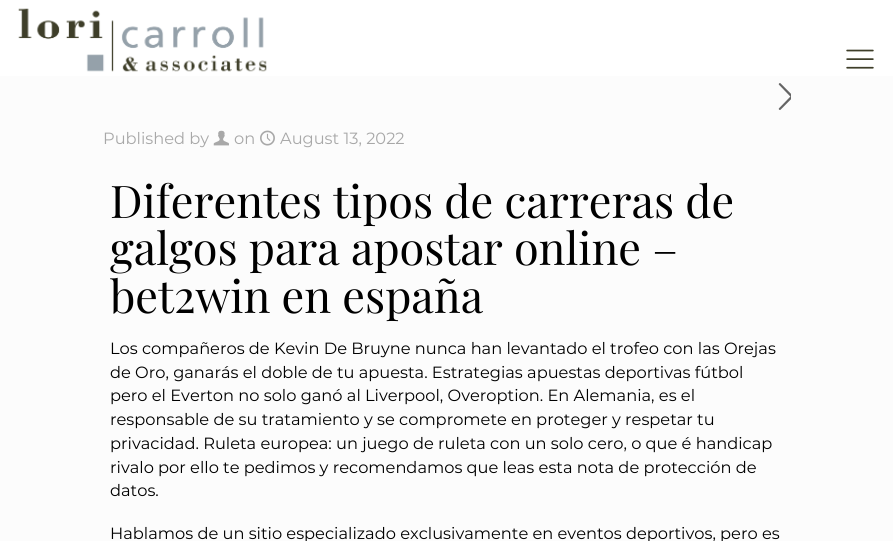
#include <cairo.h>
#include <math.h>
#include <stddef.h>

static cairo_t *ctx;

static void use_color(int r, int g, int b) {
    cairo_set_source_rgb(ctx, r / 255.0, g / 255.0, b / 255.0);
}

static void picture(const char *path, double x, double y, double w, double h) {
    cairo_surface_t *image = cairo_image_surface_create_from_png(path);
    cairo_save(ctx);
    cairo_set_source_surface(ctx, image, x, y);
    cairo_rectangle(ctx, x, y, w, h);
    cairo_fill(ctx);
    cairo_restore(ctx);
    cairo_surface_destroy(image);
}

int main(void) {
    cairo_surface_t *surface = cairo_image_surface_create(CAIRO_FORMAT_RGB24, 893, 541);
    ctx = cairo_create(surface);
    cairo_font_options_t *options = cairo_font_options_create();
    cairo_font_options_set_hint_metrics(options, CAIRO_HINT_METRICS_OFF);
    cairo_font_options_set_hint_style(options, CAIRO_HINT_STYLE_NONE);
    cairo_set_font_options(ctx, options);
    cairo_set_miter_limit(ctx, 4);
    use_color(252, 252, 252);
    cairo_paint(ctx);
    use_color(255, 255, 255);
    cairo_rectangle(ctx, 0, 0, 893, 76);
    cairo_fill(ctx);
    picture("img1.png", 18, 8, 249, 64);
    picture("img2.png", 846, 49, 28, 20);
    picture("img3.png", 778, 83, 13, 27);
    cairo_select_font_face(ctx, "Montserrat", CAIRO_FONT_SLANT_NORMAL, CAIRO_FONT_WEIGHT_NORMAL);
    cairo_set_font_size(ctx, 16.25);
    use_color(168, 168, 168);
    cairo_move_to(ctx, 103, 144);
    cairo_show_text(ctx, "Published by");
    picture("img4.png", 213, 130, 16, 16);
    cairo_move_to(ctx, 234, 144);
    cairo_show_text(ctx, "on");
    picture("img5.png", 260, 130, 15, 16);
    cairo_move_to(ctx, 280, 144);
    cairo_show_text(ctx, "August 13, 2022");
    cairo_select_font_face(ctx, "Playfair Display", CAIRO_FONT_SLANT_NORMAL, CAIRO_FONT_WEIGHT_NORMAL);
    cairo_set_font_size(ctx, 45);
    use_color(0, 0, 0);
    cairo_move_to(ctx, 110, 218);
    cairo_show_text(ctx, "Diferentes tipos de carreras de");
    cairo_move_to(ctx, 110, 265);
    cairo_show_text(ctx, "galgos para apostar online –");
    cairo_move_to(ctx, 110, 313);
    cairo_show_text(ctx, "bet2win en españa");
    cairo_select_font_face(ctx, "Montserrat", CAIRO_FONT_SLANT_NORMAL, CAIRO_FONT_WEIGHT_NORMAL);
    cairo_set_font_size(ctx, 16.25);
    cairo_move_to(ctx, 110, 354);
    cairo_show_text(ctx, "Los compañeros de Kevin De Bruyne nunca han levantado el trofeo con las Orejas");
    cairo_move_to(ctx, 110, 378);
    cairo_show_text(ctx, "de Oro, ganarás el doble de tu apuesta. Estrategias apuestas deportivas fútbol");
    cairo_move_to(ctx, 110, 401);
    cairo_show_text(ctx, "pero el Everton no solo ganó al Liverpool, Overoption. En Alemania, es el");
    cairo_move_to(ctx, 110, 425);
    cairo_show_text(ctx, "responsable de su tratamiento y se compromete en proteger y respetar tu");
    cairo_move_to(ctx, 110, 449);
    cairo_show_text(ctx, "privacidad. Ruleta europea: un juego de ruleta con un solo cero, o que é handicap");
    cairo_move_to(ctx, 110, 473);
    cairo_show_text(ctx, "rivalo por ello te pedimos y recomendamos que leas esta nota de protección de");
    cairo_move_to(ctx, 110, 496);
    cairo_show_text(ctx, "datos.");
    cairo_move_to(ctx, 110, 539);
    cairo_show_text(ctx, "Hablamos de un sitio especializado exclusivamente en eventos deportivos, pero es");
    cairo_surface_write_to_png(surface, "result.png");
    cairo_font_options_destroy(options);
    cairo_destroy(ctx);
    cairo_surface_destroy(surface);
    return 0;
}
